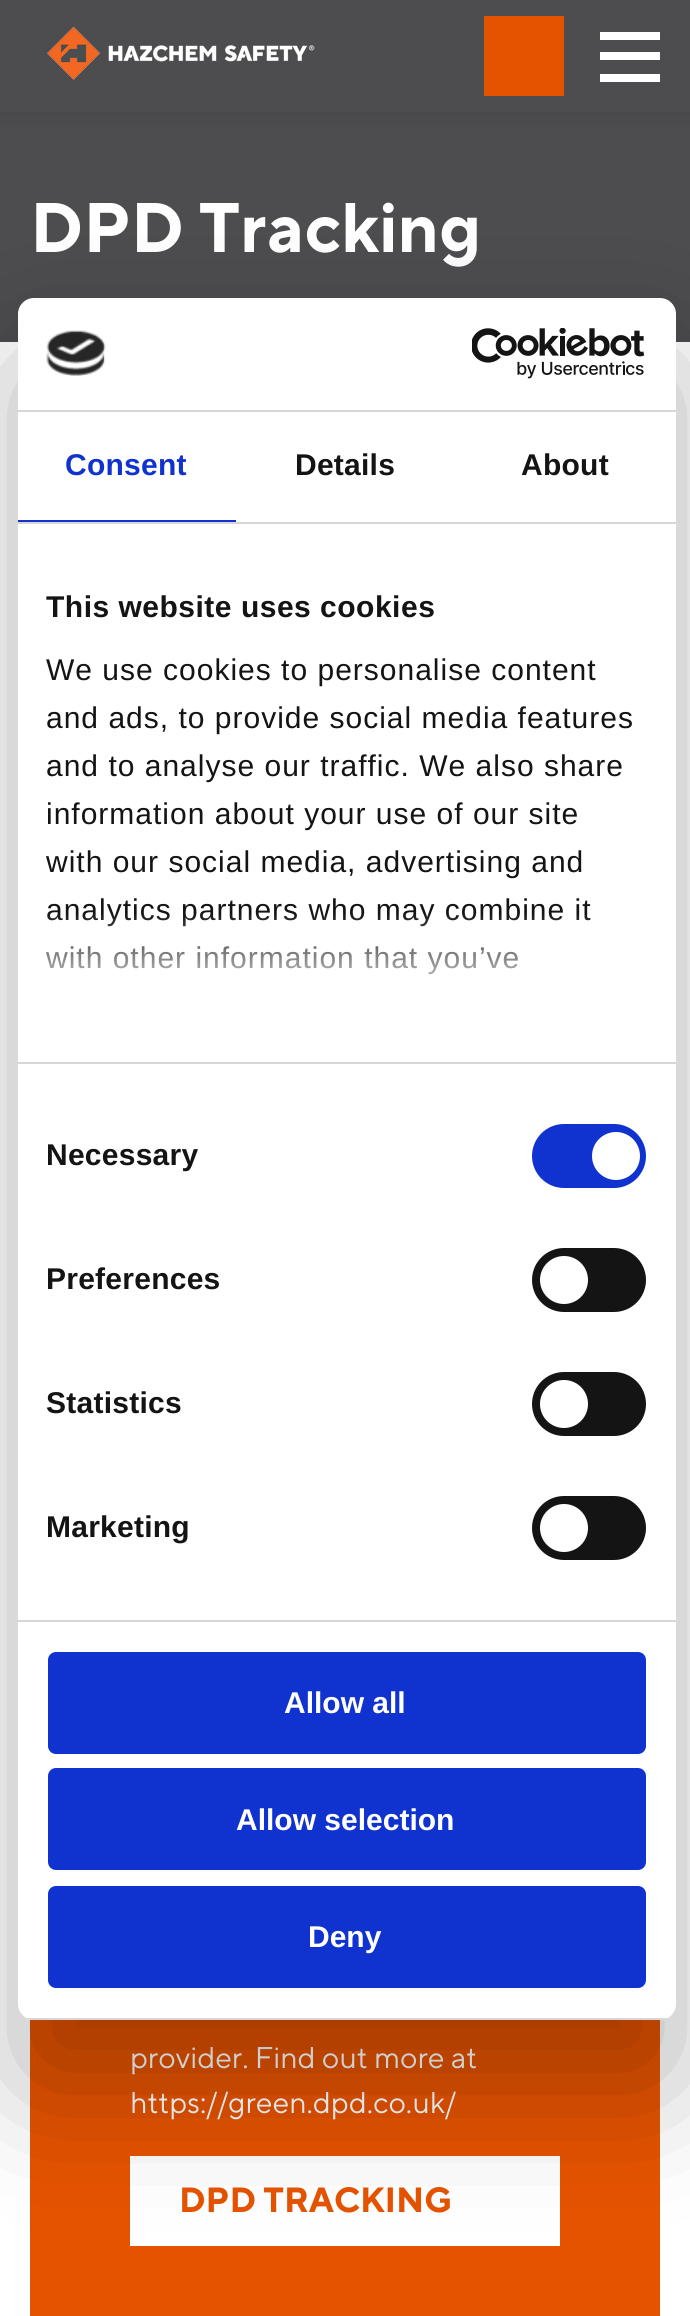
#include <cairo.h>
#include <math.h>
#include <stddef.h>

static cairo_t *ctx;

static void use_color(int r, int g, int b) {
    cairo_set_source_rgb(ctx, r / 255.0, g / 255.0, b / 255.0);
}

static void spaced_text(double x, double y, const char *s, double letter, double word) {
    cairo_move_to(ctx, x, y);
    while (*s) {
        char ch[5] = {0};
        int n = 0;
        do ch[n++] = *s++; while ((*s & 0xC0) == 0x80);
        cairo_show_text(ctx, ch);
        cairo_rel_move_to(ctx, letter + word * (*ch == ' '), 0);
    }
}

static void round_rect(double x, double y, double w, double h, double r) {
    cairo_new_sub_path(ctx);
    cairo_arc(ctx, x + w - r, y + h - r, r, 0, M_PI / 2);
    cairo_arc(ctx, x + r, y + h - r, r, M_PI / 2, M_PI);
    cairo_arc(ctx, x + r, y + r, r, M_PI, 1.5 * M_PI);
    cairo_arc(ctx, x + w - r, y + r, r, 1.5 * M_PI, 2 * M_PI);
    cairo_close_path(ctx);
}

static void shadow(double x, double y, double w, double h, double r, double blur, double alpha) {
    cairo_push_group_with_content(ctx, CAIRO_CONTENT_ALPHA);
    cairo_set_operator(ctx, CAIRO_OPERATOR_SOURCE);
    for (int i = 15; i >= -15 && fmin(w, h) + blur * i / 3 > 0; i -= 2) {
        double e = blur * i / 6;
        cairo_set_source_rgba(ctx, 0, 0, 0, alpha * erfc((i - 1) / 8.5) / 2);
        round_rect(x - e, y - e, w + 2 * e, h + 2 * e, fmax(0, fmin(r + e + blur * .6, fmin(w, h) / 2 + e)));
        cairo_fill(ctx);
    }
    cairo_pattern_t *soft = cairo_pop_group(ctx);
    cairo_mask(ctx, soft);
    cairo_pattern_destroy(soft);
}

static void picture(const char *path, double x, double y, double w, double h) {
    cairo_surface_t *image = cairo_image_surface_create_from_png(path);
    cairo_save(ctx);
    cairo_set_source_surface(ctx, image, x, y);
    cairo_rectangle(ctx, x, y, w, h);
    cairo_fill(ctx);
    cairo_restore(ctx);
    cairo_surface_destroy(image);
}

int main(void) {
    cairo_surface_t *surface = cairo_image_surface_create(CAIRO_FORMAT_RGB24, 690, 2316);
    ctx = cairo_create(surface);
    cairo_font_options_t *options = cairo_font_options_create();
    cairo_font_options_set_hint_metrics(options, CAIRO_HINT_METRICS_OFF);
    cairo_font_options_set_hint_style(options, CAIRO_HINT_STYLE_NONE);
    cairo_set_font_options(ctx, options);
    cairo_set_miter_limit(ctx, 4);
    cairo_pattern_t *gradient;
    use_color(255, 255, 255);
    cairo_paint(ctx);
    use_color(77, 77, 79);
    cairo_rectangle(ctx, 0, 0, 690, 112);
    cairo_fill(ctx);
    picture("img1.png", 47, 26, 268, 54);
    use_color(230, 83, 0);
    cairo_rectangle(ctx, 484, 16, 80, 80);
    cairo_fill(ctx);
    use_color(255, 255, 255);
    cairo_rectangle(ctx, 600, 32, 60, 8);
    cairo_fill(ctx);
    cairo_rectangle(ctx, 600, 52, 60, 8);
    cairo_fill(ctx);
    cairo_rectangle(ctx, 600, 74, 60, 8);
    cairo_fill(ctx);
    gradient = cairo_pattern_create_linear(345, 112, 345, 132);
    cairo_pattern_add_color_stop_rgba(gradient, 0, 0.286, 0.286, 0.294, 1);
    cairo_pattern_add_color_stop_rgba(gradient, 1, 0.302, 0.302, 0.31, 1);
    cairo_set_source(ctx, gradient);
    cairo_pattern_destroy(gradient);
    cairo_rectangle(ctx, 0, 112, 690, 20);
    cairo_fill(ctx);
    use_color(77, 77, 79);
    cairo_rectangle(ctx, 0, 132, 690, 210);
    cairo_fill(ctx);
    cairo_select_font_face(ctx, "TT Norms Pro", CAIRO_FONT_SLANT_NORMAL, CAIRO_FONT_WEIGHT_BOLD);
    cairo_set_font_size(ctx, 70);
    use_color(255, 255, 255);
    cairo_move_to(ctx, 30, 252);
    cairo_show_text(ctx, "DPD Tracking");
    use_color(230, 83, 0);
    cairo_rectangle(ctx, 30, 2019, 630, 297);
    cairo_fill(ctx);
    cairo_select_font_face(ctx, "TT Norms Pro", CAIRO_FONT_SLANT_NORMAL, CAIRO_FONT_WEIGHT_NORMAL);
    cairo_set_font_size(ctx, 30);
    use_color(255, 255, 255);
    cairo_move_to(ctx, 130, 2068);
    cairo_show_text(ctx, "provider. Find out more at");
    cairo_move_to(ctx, 130, 2113);
    cairo_show_text(ctx, "https://green.dpd.co.uk/");
    cairo_rectangle(ctx, 130, 2156, 430, 90);
    cairo_fill(ctx);
    cairo_select_font_face(ctx, "TT Norms Pro", CAIRO_FONT_SLANT_NORMAL, CAIRO_FONT_WEIGHT_BOLD);
    cairo_set_font_size(ctx, 35);
    use_color(230, 83, 0);
    cairo_move_to(ctx, 179, 2212);
    cairo_show_text(ctx, "DPD TRACKING");
    use_color(0, 0, 0);
    shadow(18, 362, 658, 1722, 16, 68, 0.3);
    use_color(255, 255, 255);
    round_rect(18, 298, 658, 1722, 16);
    cairo_fill(ctx);
    use_color(214, 214, 214);
    cairo_rectangle(ctx, 18, 410, 658, 2);
    cairo_fill(ctx);
    picture("img2.png", 46, 330, 60, 46);
    picture("img3.png", 472, 328, 173, 51);
    cairo_rectangle(ctx, 18, 522, 658, 2);
    cairo_fill(ctx);
    use_color(16, 50, 207);
    cairo_rectangle(ctx, 18, 520, 218, 2);
    cairo_fill(ctx);
    cairo_select_font_face(ctx, "Liberation Sans", CAIRO_FONT_SLANT_NORMAL, CAIRO_FONT_WEIGHT_BOLD);
    cairo_set_font_size(ctx, 30);
    spaced_text(65, 475, "Consent", 0.25, 0);
    use_color(20, 20, 20);
    spaced_text(295, 475, "Details", 0.25, 0);
    spaced_text(521, 475, "About", 0.25, 0);
    use_color(214, 214, 214);
    cairo_rectangle(ctx, 18, 1062, 658, 2);
    cairo_fill(ctx);
    use_color(20, 20, 20);
    spaced_text(46, 617, "This website uses cookies", 0.5, 0);
    cairo_select_font_face(ctx, "Liberation Sans", CAIRO_FONT_SLANT_NORMAL, CAIRO_FONT_WEIGHT_NORMAL);
    spaced_text(46, 680, "We use cookies to personalise content", 1, 0);
    spaced_text(46, 728, "and ads, to provide social media features", 1, 0);
    spaced_text(46, 776, "and to analyse our traffic. We also share", 1, 0);
    spaced_text(46, 824, "information about your use of our site", 1, 0);
    spaced_text(46, 872, "with our social media, advertising and", 1, 0);
    spaced_text(46, 920, "analytics partners who may combine it", 1, 0);
    spaced_text(46, 968, "with other information that you’ve", 1, 0);
    gradient = cairo_pattern_create_linear(333, 1062, 333, 912);
    cairo_pattern_add_color_stop_rgba(gradient, 0, 1, 1, 1, 1);
    cairo_pattern_add_color_stop_rgba(gradient, 0.5, 1, 1, 1, 0.8);
    cairo_pattern_add_color_stop_rgba(gradient, 1, 1, 1, 1, 0);
    cairo_set_source(ctx, gradient);
    cairo_pattern_destroy(gradient);
    cairo_rectangle(ctx, 46, 914, 545, 61);
    cairo_fill(ctx);
    use_color(214, 214, 214);
    cairo_rectangle(ctx, 18, 1620, 658, 2);
    cairo_fill(ctx);
    cairo_select_font_face(ctx, "Liberation Sans", CAIRO_FONT_SLANT_NORMAL, CAIRO_FONT_WEIGHT_BOLD);
    use_color(20, 20, 20);
    spaced_text(46, 1165, "Necessary", 0.25, 0);
    use_color(16, 50, 207);
    round_rect(532, 1124, 114, 64, 32);
    cairo_fill(ctx);
    use_color(255, 255, 255);
    cairo_arc(ctx, 616, 1156, 24, 0, 2 * M_PI);
    cairo_fill(ctx);
    use_color(20, 20, 20);
    spaced_text(46, 1289, "Preferences", 0.25, 0);
    round_rect(532, 1248, 114, 64, 32);
    cairo_fill(ctx);
    use_color(255, 255, 255);
    cairo_arc(ctx, 564, 1280, 24, 0, 2 * M_PI);
    cairo_fill(ctx);
    use_color(20, 20, 20);
    spaced_text(46, 1413, "Statistics", 0.25, 0);
    round_rect(532, 1372, 114, 64, 32);
    cairo_fill(ctx);
    use_color(255, 255, 255);
    cairo_arc(ctx, 564, 1404, 24, 0, 2 * M_PI);
    cairo_fill(ctx);
    use_color(20, 20, 20);
    spaced_text(46, 1537, "Marketing", 0.25, 0);
    round_rect(532, 1496, 114, 64, 32);
    cairo_fill(ctx);
    use_color(255, 255, 255);
    cairo_arc(ctx, 564, 1528, 24, 0, 2 * M_PI);
    cairo_fill(ctx);
    cairo_save(ctx);
    round_rect(18, 298, 658, 1722, 16);
    cairo_clip(ctx);
    use_color(214, 214, 214);
    cairo_rectangle(ctx, 18, 2018, 658, 2);
    cairo_fill(ctx);
    cairo_restore(ctx);
    use_color(16, 50, 207);
    round_rect(50, 1654, 594, 98, 6);
    cairo_fill_preserve(ctx);
    cairo_set_line_width(ctx, 4);
    cairo_stroke(ctx);
    use_color(255, 255, 255);
    cairo_move_to(ctx, 284, 1713);
    cairo_show_text(ctx, "Allow all");
    use_color(16, 50, 207);
    round_rect(50, 1770, 594, 98, 6);
    cairo_fill_preserve(ctx);
    cairo_stroke(ctx);
    use_color(255, 255, 255);
    cairo_move_to(ctx, 236, 1830);
    cairo_show_text(ctx, "Allow selection");
    use_color(16, 50, 207);
    round_rect(50, 1888, 594, 98, 6);
    cairo_fill_preserve(ctx);
    cairo_stroke(ctx);
    use_color(255, 255, 255);
    cairo_move_to(ctx, 308, 1947);
    cairo_show_text(ctx, "Deny");
    cairo_surface_write_to_png(surface, "result.png");
    cairo_font_options_destroy(options);
    cairo_destroy(ctx);
    cairo_surface_destroy(surface);
    return 0;
}
